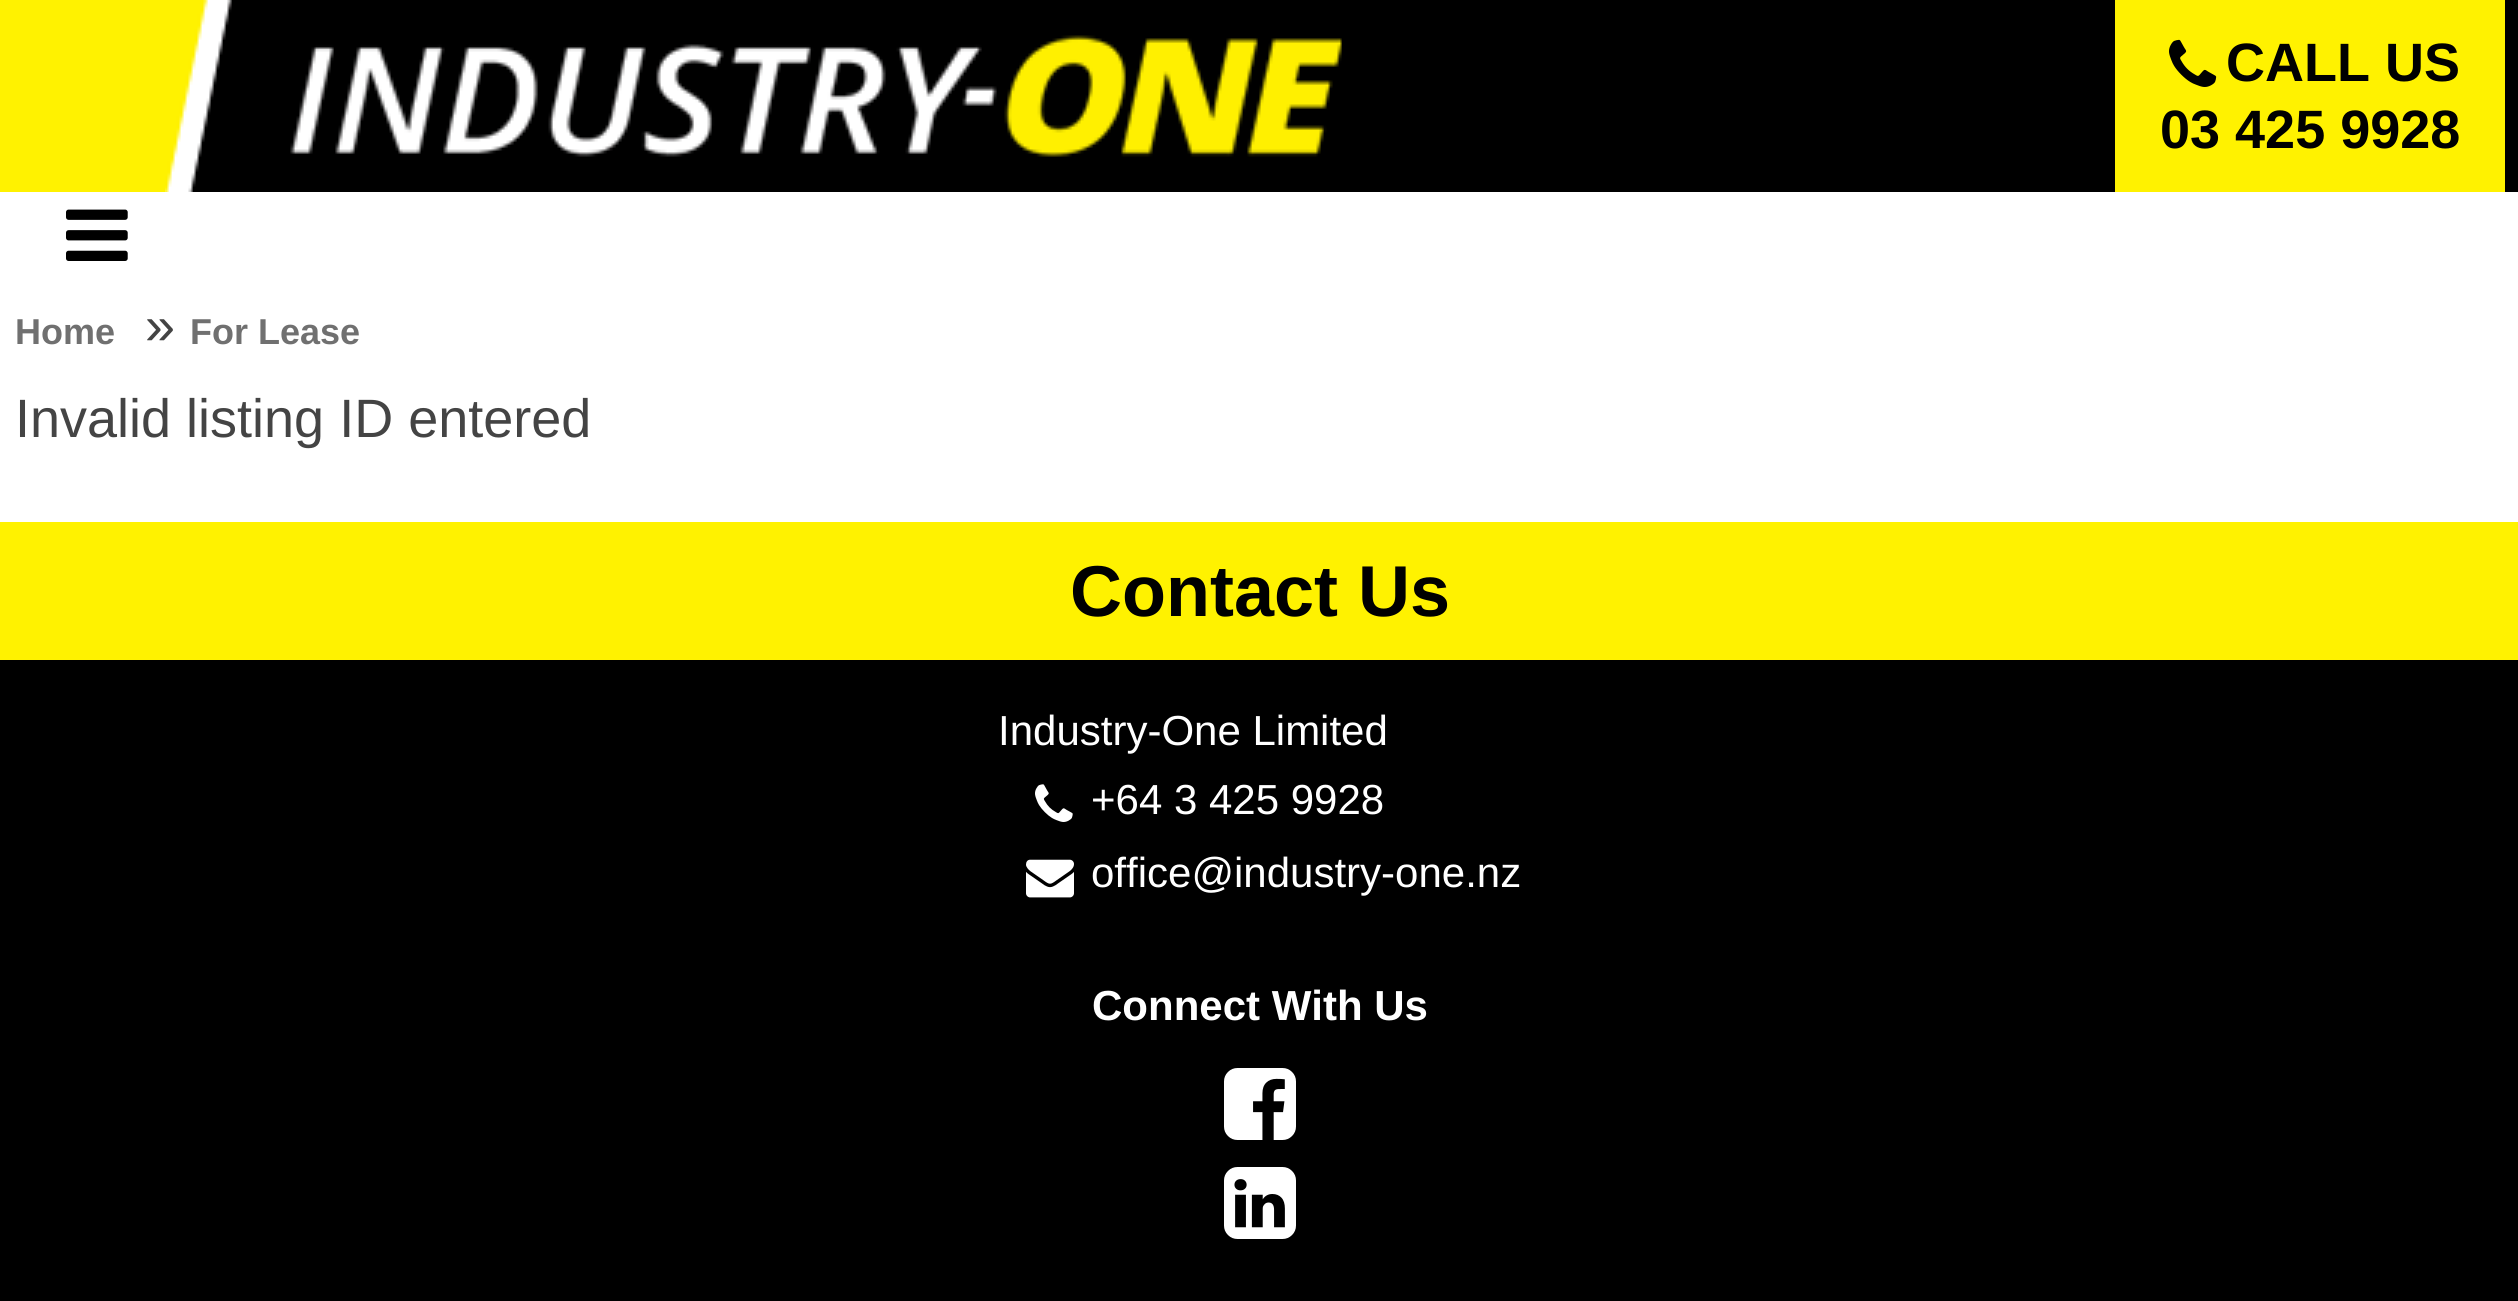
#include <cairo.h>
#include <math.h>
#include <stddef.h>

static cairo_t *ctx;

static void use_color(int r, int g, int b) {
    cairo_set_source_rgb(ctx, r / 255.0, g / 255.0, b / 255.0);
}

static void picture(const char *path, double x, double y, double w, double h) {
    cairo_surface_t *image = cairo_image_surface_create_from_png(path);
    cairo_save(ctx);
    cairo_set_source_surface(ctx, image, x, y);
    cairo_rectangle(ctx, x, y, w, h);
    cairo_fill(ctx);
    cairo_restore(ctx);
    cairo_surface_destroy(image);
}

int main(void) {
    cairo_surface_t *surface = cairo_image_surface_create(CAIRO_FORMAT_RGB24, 2518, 1301);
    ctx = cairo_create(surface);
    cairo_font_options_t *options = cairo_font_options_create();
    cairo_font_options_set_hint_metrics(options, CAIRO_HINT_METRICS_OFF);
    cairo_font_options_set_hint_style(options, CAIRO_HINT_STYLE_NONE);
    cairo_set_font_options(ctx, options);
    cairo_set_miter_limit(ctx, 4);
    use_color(0, 0, 0);
    cairo_paint(ctx);
    use_color(255, 242, 0);
    cairo_rectangle(ctx, 0, 0, 165, 192);
    cairo_fill(ctx);
    picture("img1.png", 165, 0, 1177, 192);
    cairo_rectangle(ctx, 2115, 0, 390, 192);
    cairo_fill(ctx);
    picture("img2.png", 2169, 39, 48, 48);
    cairo_select_font_face(ctx, "Liberation Sans", CAIRO_FONT_SLANT_NORMAL, CAIRO_FONT_WEIGHT_BOLD);
    cairo_set_font_size(ctx, 54);
    use_color(0, 0, 0);
    cairo_move_to(ctx, 2226, 81);
    cairo_show_text(ctx, "CALL US");
    cairo_move_to(ctx, 2160, 148);
    cairo_show_text(ctx, "03 425 9928");
    use_color(255, 255, 255);
    cairo_rectangle(ctx, 0, 192, 2518, 330);
    cairo_fill(ctx);
    picture("img3.png", 66, 209, 62, 52);
    cairo_set_font_size(ctx, 36);
    use_color(112, 112, 112);
    cairo_move_to(ctx, 15, 344);
    cairo_show_text(ctx, "Home");
    cairo_select_font_face(ctx, "Liberation Sans", CAIRO_FONT_SLANT_NORMAL, CAIRO_FONT_WEIGHT_NORMAL);
    cairo_set_font_size(ctx, 54);
    use_color(68, 68, 68);
    cairo_move_to(ctx, 145, 344);
    cairo_show_text(ctx, "»");
    cairo_select_font_face(ctx, "Liberation Sans", CAIRO_FONT_SLANT_NORMAL, CAIRO_FONT_WEIGHT_BOLD);
    cairo_set_font_size(ctx, 36);
    use_color(112, 112, 112);
    cairo_move_to(ctx, 190, 344);
    cairo_show_text(ctx, "For Lease");
    cairo_select_font_face(ctx, "Liberation Sans", CAIRO_FONT_SLANT_NORMAL, CAIRO_FONT_WEIGHT_NORMAL);
    cairo_set_font_size(ctx, 54);
    use_color(68, 68, 68);
    cairo_move_to(ctx, 15, 437);
    cairo_show_text(ctx, "Invalid listing ID entered");
    use_color(255, 242, 0);
    cairo_rectangle(ctx, 0, 522, 2518, 138);
    cairo_fill(ctx);
    cairo_select_font_face(ctx, "Liberation Sans", CAIRO_FONT_SLANT_NORMAL, CAIRO_FONT_WEIGHT_BOLD);
    cairo_set_font_size(ctx, 72);
    use_color(0, 0, 0);
    cairo_move_to(ctx, 1070, 616);
    cairo_show_text(ctx, "Contact Us");
    cairo_select_font_face(ctx, "Liberation Sans", CAIRO_FONT_SLANT_NORMAL, CAIRO_FONT_WEIGHT_NORMAL);
    cairo_set_font_size(ctx, 42);
    use_color(255, 255, 255);
    cairo_move_to(ctx, 998, 745);
    cairo_show_text(ctx, "Industry-One Limited");
    picture("img4.png", 1035, 784, 38, 38);
    cairo_move_to(ctx, 1091, 814);
    cairo_show_text(ctx, "+64 3 425 9928");
    picture("img5.png", 1026, 859, 48, 39);
    cairo_move_to(ctx, 1091, 887);
    cairo_show_text(ctx, "office@industry-one.nz");
    cairo_select_font_face(ctx, "Liberation Sans", CAIRO_FONT_SLANT_NORMAL, CAIRO_FONT_WEIGHT_BOLD);
    cairo_move_to(ctx, 1092, 1020);
    cairo_show_text(ctx, "Connect With Us");
    picture("img6.png", 1224, 1068, 72, 72);
    picture("img7.png", 1224, 1167, 72, 72);
    cairo_surface_write_to_png(surface, "result.png");
    cairo_font_options_destroy(options);
    cairo_destroy(ctx);
    cairo_surface_destroy(surface);
    return 0;
}
